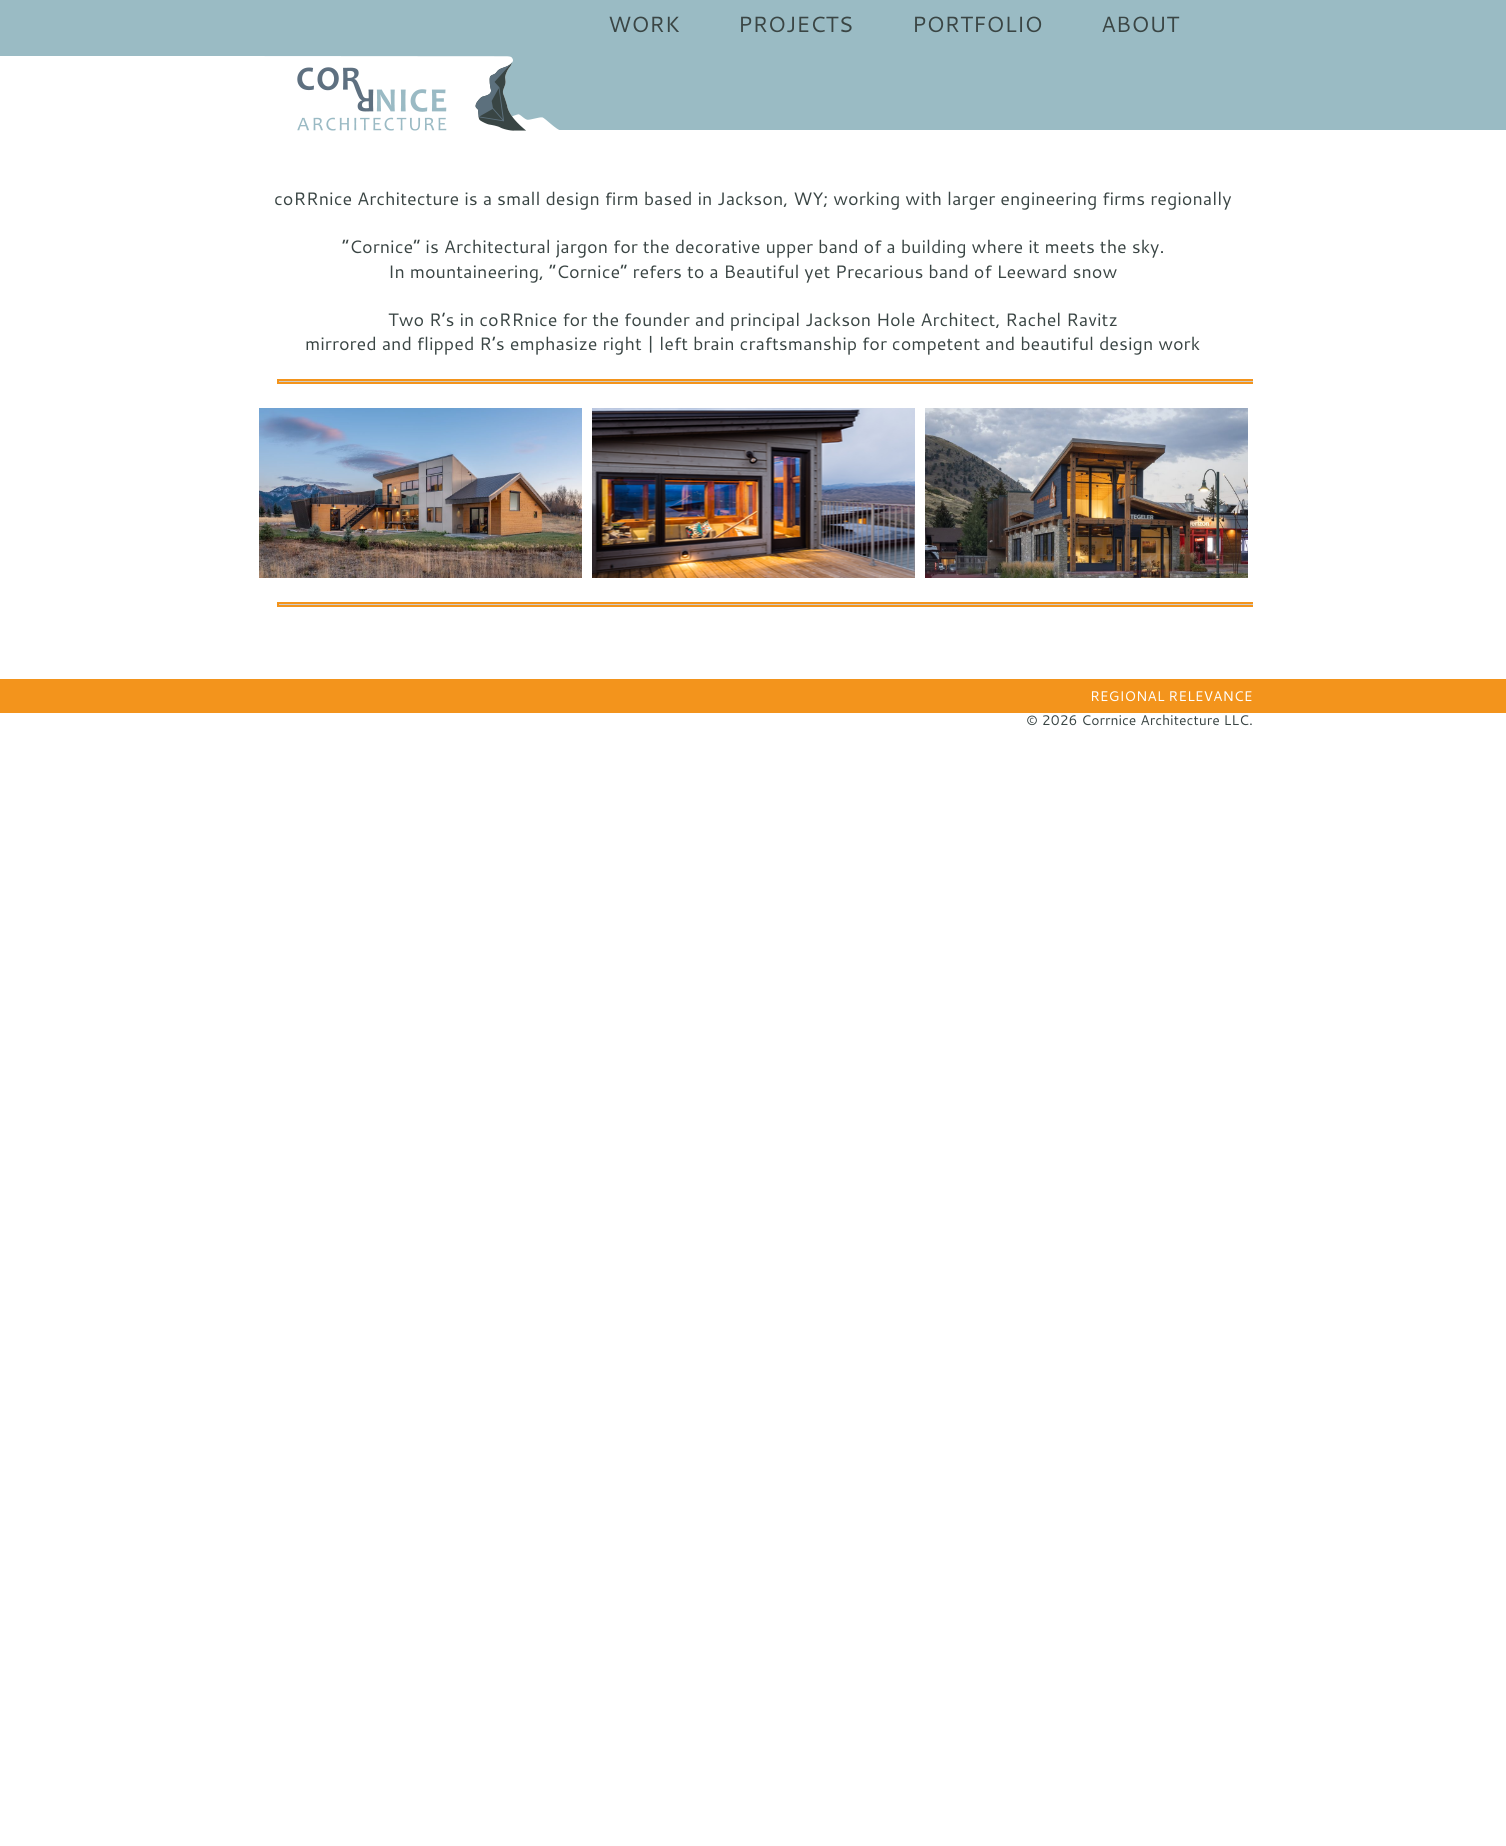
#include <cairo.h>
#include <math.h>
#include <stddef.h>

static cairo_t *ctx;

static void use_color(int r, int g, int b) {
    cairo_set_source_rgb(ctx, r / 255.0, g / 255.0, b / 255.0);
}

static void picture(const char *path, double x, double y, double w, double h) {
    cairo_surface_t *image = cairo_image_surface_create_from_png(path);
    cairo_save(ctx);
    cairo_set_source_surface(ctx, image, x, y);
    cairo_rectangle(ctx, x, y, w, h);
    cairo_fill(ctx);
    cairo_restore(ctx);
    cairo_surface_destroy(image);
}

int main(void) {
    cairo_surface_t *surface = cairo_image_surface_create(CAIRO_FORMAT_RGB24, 1506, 1846);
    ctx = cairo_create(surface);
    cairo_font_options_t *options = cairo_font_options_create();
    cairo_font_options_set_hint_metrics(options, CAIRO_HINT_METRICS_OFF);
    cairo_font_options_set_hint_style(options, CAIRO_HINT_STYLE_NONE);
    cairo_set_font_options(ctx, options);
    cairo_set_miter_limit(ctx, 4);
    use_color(255, 255, 255);
    cairo_paint(ctx);
    use_color(154, 187, 196);
    cairo_rectangle(ctx, 0, 0, 1506, 130);
    cairo_fill(ctx);
    cairo_select_font_face(ctx, "Cantarell", CAIRO_FONT_SLANT_NORMAL, CAIRO_FONT_WEIGHT_NORMAL);
    cairo_set_font_size(ctx, 22);
    use_color(58, 69, 68);
    cairo_move_to(ctx, 608, 32);
    cairo_show_text(ctx, "WORK");
    cairo_move_to(ctx, 738, 32);
    cairo_show_text(ctx, "PROJECTS");
    cairo_move_to(ctx, 912, 32);
    cairo_show_text(ctx, "PORTFOLIO");
    cairo_move_to(ctx, 1101, 32);
    cairo_show_text(ctx, "ABOUT");
    use_color(255, 255, 255);
    cairo_rectangle(ctx, 0, 56, 253, 74);
    cairo_fill(ctx);
    picture("img1.png", 253, 56, 350, 95);
    cairo_set_font_size(ctx, 18);
    use_color(58, 69, 68);
    cairo_move_to(ctx, 274, 205);
    cairo_show_text(ctx, "coRRnice Architecture is a small design firm based in Jackson, WY; working with larger engineering firms regionally");
    cairo_move_to(ctx, 342, 253);
    cairo_show_text(ctx, "“Cornice” is Architectural jargon for the decorative upper band of a building where it meets the sky.");
    cairo_move_to(ctx, 388, 278);
    cairo_show_text(ctx, "In mountaineering, “Cornice” refers to a Beautiful yet Precarious band of Leeward snow");
    cairo_move_to(ctx, 388, 326);
    cairo_show_text(ctx, "Two R’s in coRRnice for the founder and principal Jackson Hole Architect, Rachel Ravitz");
    cairo_move_to(ctx, 305, 350);
    cairo_show_text(ctx, "mirrored and flipped R’s emphasize right | left brain craftsmanship for competent and beautiful design work");
    use_color(204, 204, 204);
    cairo_rectangle(ctx, 277, 381, 976, 1);
    cairo_fill(ctx);
    cairo_save(ctx);
    cairo_rectangle(ctx, 253, 186, 1000, 445);
    cairo_clip(ctx);
    cairo_rectangle(ctx, 278, 380, 1002, 3);
    use_color(243, 148, 28);
    cairo_stroke(ctx);
    cairo_restore(ctx);
    picture("img2.png", 259, 408, 323, 170);
    picture("img3.png", 592, 408, 323, 170);
    picture("img4.png", 925, 408, 323, 170);
    cairo_rectangle(ctx, 277, 604, 976, 1);
    cairo_fill(ctx);
    cairo_save(ctx);
    cairo_rectangle(ctx, 253, 186, 1000, 445);
    cairo_clip(ctx);
    cairo_rectangle(ctx, 278, 603, 1002, 3);
    use_color(243, 148, 28);
    cairo_stroke(ctx);
    cairo_restore(ctx);
    use_color(243, 148, 28);
    cairo_rectangle(ctx, 0, 679, 1506, 34);
    cairo_fill(ctx);
    cairo_set_font_size(ctx, 14);
    use_color(255, 255, 255);
    cairo_move_to(ctx, 1090, 701);
    cairo_show_text(ctx, "REGIONAL RELEVANCE");
    use_color(58, 69, 68);
    cairo_move_to(ctx, 1026, 725);
    cairo_show_text(ctx, "© 2026 Corrnice Architecture LLC.");
    cairo_surface_write_to_png(surface, "result.png");
    cairo_font_options_destroy(options);
    cairo_destroy(ctx);
    cairo_surface_destroy(surface);
    return 0;
}
